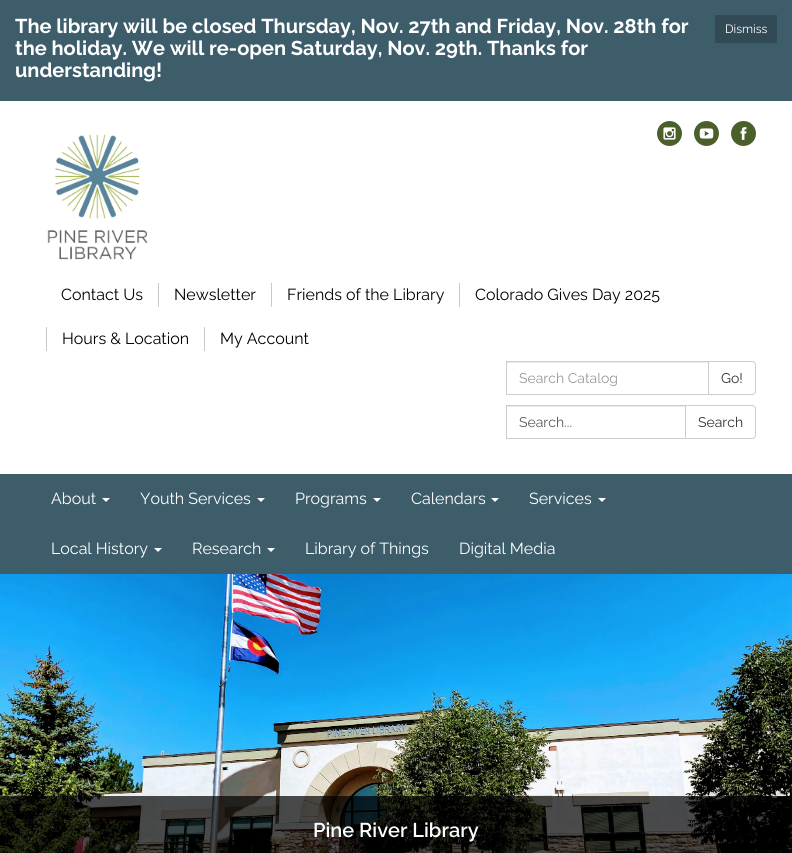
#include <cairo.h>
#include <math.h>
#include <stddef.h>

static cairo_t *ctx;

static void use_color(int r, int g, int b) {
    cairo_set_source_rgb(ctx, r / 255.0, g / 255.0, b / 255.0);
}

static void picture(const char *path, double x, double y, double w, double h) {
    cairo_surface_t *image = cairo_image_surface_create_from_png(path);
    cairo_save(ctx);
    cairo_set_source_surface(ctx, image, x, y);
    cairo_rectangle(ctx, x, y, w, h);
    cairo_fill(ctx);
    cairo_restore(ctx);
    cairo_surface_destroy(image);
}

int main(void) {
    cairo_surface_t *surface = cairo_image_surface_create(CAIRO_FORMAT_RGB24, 792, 853);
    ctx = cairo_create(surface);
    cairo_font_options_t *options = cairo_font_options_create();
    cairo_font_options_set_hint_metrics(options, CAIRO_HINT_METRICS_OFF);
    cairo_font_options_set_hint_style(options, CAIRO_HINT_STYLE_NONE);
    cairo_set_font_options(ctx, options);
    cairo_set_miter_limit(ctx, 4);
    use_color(61, 93, 107);
    cairo_paint(ctx);
    cairo_select_font_face(ctx, "Raleway", CAIRO_FONT_SLANT_NORMAL, CAIRO_FONT_WEIGHT_BOLD);
    cairo_set_font_size(ctx, 20);
    use_color(255, 255, 255);
    cairo_move_to(ctx, 15, 33);
    cairo_show_text(ctx, "The library will be closed Thursday, Nov. 27th and Friday, Nov. 28th for");
    cairo_move_to(ctx, 15, 55);
    cairo_show_text(ctx, "the holiday. We will re-open Saturday, Nov. 29th. Thanks for");
    cairo_move_to(ctx, 15, 77);
    cairo_show_text(ctx, "understanding!");
    use_color(49, 74, 86);
    cairo_rectangle(ctx, 715, 15, 62, 28);
    cairo_fill(ctx);
    cairo_select_font_face(ctx, "Raleway", CAIRO_FONT_SLANT_NORMAL, CAIRO_FONT_WEIGHT_NORMAL);
    cairo_set_font_size(ctx, 12);
    use_color(255, 255, 255);
    cairo_move_to(ctx, 725, 33);
    cairo_show_text(ctx, "Dismiss");
    cairo_rectangle(ctx, 0, 101, 792, 373);
    cairo_fill(ctx);
    picture("img1.png", 47, 134, 101, 126);
    picture("img2.png", 657, 121, 25, 25);
    picture("img3.png", 694, 121, 25, 25);
    picture("img4.png", 731, 121, 25, 25);
    cairo_set_font_size(ctx, 16);
    use_color(0, 0, 0);
    cairo_move_to(ctx, 61, 300);
    cairo_show_text(ctx, "Contact Us");
    use_color(200, 201, 203);
    cairo_rectangle(ctx, 158, 283, 1, 24);
    cairo_fill(ctx);
    use_color(0, 0, 0);
    cairo_move_to(ctx, 174, 300);
    cairo_show_text(ctx, "Newsletter");
    use_color(200, 201, 203);
    cairo_rectangle(ctx, 271, 283, 1, 24);
    cairo_fill(ctx);
    use_color(0, 0, 0);
    cairo_move_to(ctx, 287, 300);
    cairo_show_text(ctx, "Friends of the Library");
    use_color(200, 201, 203);
    cairo_rectangle(ctx, 459, 283, 1, 24);
    cairo_fill(ctx);
    use_color(0, 0, 0);
    cairo_move_to(ctx, 475, 300);
    cairo_show_text(ctx, "Colorado Gives Day 2025");
    use_color(200, 201, 203);
    cairo_rectangle(ctx, 46, 327, 1, 24);
    cairo_fill(ctx);
    use_color(0, 0, 0);
    cairo_move_to(ctx, 62, 344);
    cairo_show_text(ctx, "Hours & Location");
    use_color(200, 201, 203);
    cairo_rectangle(ctx, 204, 327, 1, 24);
    cairo_fill(ctx);
    use_color(0, 0, 0);
    cairo_move_to(ctx, 220, 344);
    cairo_show_text(ctx, "My Account");
    use_color(236, 236, 236);
    cairo_rectangle(ctx, 507, 362, 201, 1);
    cairo_fill(ctx);
    cairo_rectangle(ctx, 506.5, 361.5, 202, 33);
    use_color(204, 204, 204);
    cairo_set_line_width(ctx, 1);
    cairo_stroke(ctx);
    cairo_set_font_size(ctx, 14);
    use_color(153, 153, 153);
    cairo_move_to(ctx, 519, 383);
    cairo_show_text(ctx, "Search Catalog");
    use_color(255, 255, 255);
    cairo_new_path(ctx);
    cairo_move_to(ctx, 708.5, 361.5);
    cairo_line_to(ctx, 752, 361.5);
    cairo_curve_to(ctx, 754, 361.5, 755.5, 363, 755.5, 365);
    cairo_line_to(ctx, 755.5, 391);
    cairo_curve_to(ctx, 755.5, 393, 754, 394.5, 752, 394.5);
    cairo_line_to(ctx, 708.5, 394.5);
    cairo_close_path(ctx);
    cairo_fill_preserve(ctx);
    use_color(204, 204, 204);
    cairo_stroke(ctx);
    use_color(51, 51, 51);
    cairo_move_to(ctx, 721, 383);
    cairo_show_text(ctx, "Go!");
    use_color(236, 236, 236);
    cairo_rectangle(ctx, 507, 406, 178, 1);
    cairo_fill(ctx);
    cairo_rectangle(ctx, 506.5, 405.5, 179, 33);
    use_color(204, 204, 204);
    cairo_stroke(ctx);
    use_color(91, 91, 91);
    cairo_move_to(ctx, 519, 427);
    cairo_show_text(ctx, "Search...");
    use_color(255, 255, 255);
    cairo_new_path(ctx);
    cairo_move_to(ctx, 685.5, 405.5);
    cairo_line_to(ctx, 752, 405.5);
    cairo_curve_to(ctx, 754, 405.5, 755.5, 407, 755.5, 409);
    cairo_line_to(ctx, 755.5, 435);
    cairo_curve_to(ctx, 755.5, 437, 754, 438.5, 752, 438.5);
    cairo_line_to(ctx, 685.5, 438.5);
    cairo_close_path(ctx);
    cairo_fill_preserve(ctx);
    use_color(204, 204, 204);
    cairo_stroke(ctx);
    use_color(51, 51, 51);
    cairo_move_to(ctx, 698, 427);
    cairo_show_text(ctx, "Search");
    cairo_set_font_size(ctx, 16);
    use_color(255, 255, 255);
    cairo_move_to(ctx, 51, 504);
    cairo_show_text(ctx, "About");
    cairo_new_path(ctx);
    cairo_move_to(ctx, 102, 498);
    cairo_line_to(ctx, 110, 498);
    cairo_line_to(ctx, 106, 502);
    cairo_close_path(ctx);
    cairo_fill(ctx);
    cairo_move_to(ctx, 140, 504);
    cairo_show_text(ctx, "Youth Services");
    cairo_new_path(ctx);
    cairo_move_to(ctx, 257, 498);
    cairo_line_to(ctx, 265, 498);
    cairo_line_to(ctx, 261, 502);
    cairo_close_path(ctx);
    cairo_fill(ctx);
    cairo_move_to(ctx, 295, 504);
    cairo_show_text(ctx, "Programs");
    cairo_new_path(ctx);
    cairo_move_to(ctx, 373, 498);
    cairo_line_to(ctx, 381, 498);
    cairo_line_to(ctx, 377, 502);
    cairo_close_path(ctx);
    cairo_fill(ctx);
    cairo_move_to(ctx, 411, 504);
    cairo_show_text(ctx, "Calendars");
    cairo_new_path(ctx);
    cairo_move_to(ctx, 491, 498);
    cairo_line_to(ctx, 499, 498);
    cairo_line_to(ctx, 495, 502);
    cairo_close_path(ctx);
    cairo_fill(ctx);
    cairo_move_to(ctx, 529, 504);
    cairo_show_text(ctx, "Services");
    cairo_new_path(ctx);
    cairo_move_to(ctx, 598, 498);
    cairo_line_to(ctx, 606, 498);
    cairo_line_to(ctx, 602, 502);
    cairo_close_path(ctx);
    cairo_fill(ctx);
    cairo_move_to(ctx, 51, 554);
    cairo_show_text(ctx, "Local History");
    cairo_new_path(ctx);
    cairo_move_to(ctx, 154, 548);
    cairo_line_to(ctx, 162, 548);
    cairo_line_to(ctx, 158, 552);
    cairo_close_path(ctx);
    cairo_fill(ctx);
    cairo_move_to(ctx, 192, 554);
    cairo_show_text(ctx, "Research");
    cairo_new_path(ctx);
    cairo_move_to(ctx, 267, 548);
    cairo_line_to(ctx, 275, 548);
    cairo_line_to(ctx, 271, 552);
    cairo_close_path(ctx);
    cairo_fill(ctx);
    cairo_move_to(ctx, 305, 554);
    cairo_show_text(ctx, "Library of Things");
    cairo_move_to(ctx, 459, 554);
    cairo_show_text(ctx, "Digital Media");
    picture("img5.png", 0, 574, 792, 279);
    cairo_set_source_rgba(ctx, 0, 0, 0, 0.7);
    cairo_rectangle(ctx, 0, 796, 792, 57);
    cairo_fill(ctx);
    cairo_select_font_face(ctx, "Raleway SemiBold", CAIRO_FONT_SLANT_NORMAL, CAIRO_FONT_WEIGHT_NORMAL);
    cairo_set_font_size(ctx, 20);
    use_color(255, 255, 255);
    cairo_move_to(ctx, 313, 837);
    cairo_show_text(ctx, "Pine River Library");
    cairo_surface_write_to_png(surface, "result.png");
    cairo_font_options_destroy(options);
    cairo_destroy(ctx);
    cairo_surface_destroy(surface);
    return 0;
}
